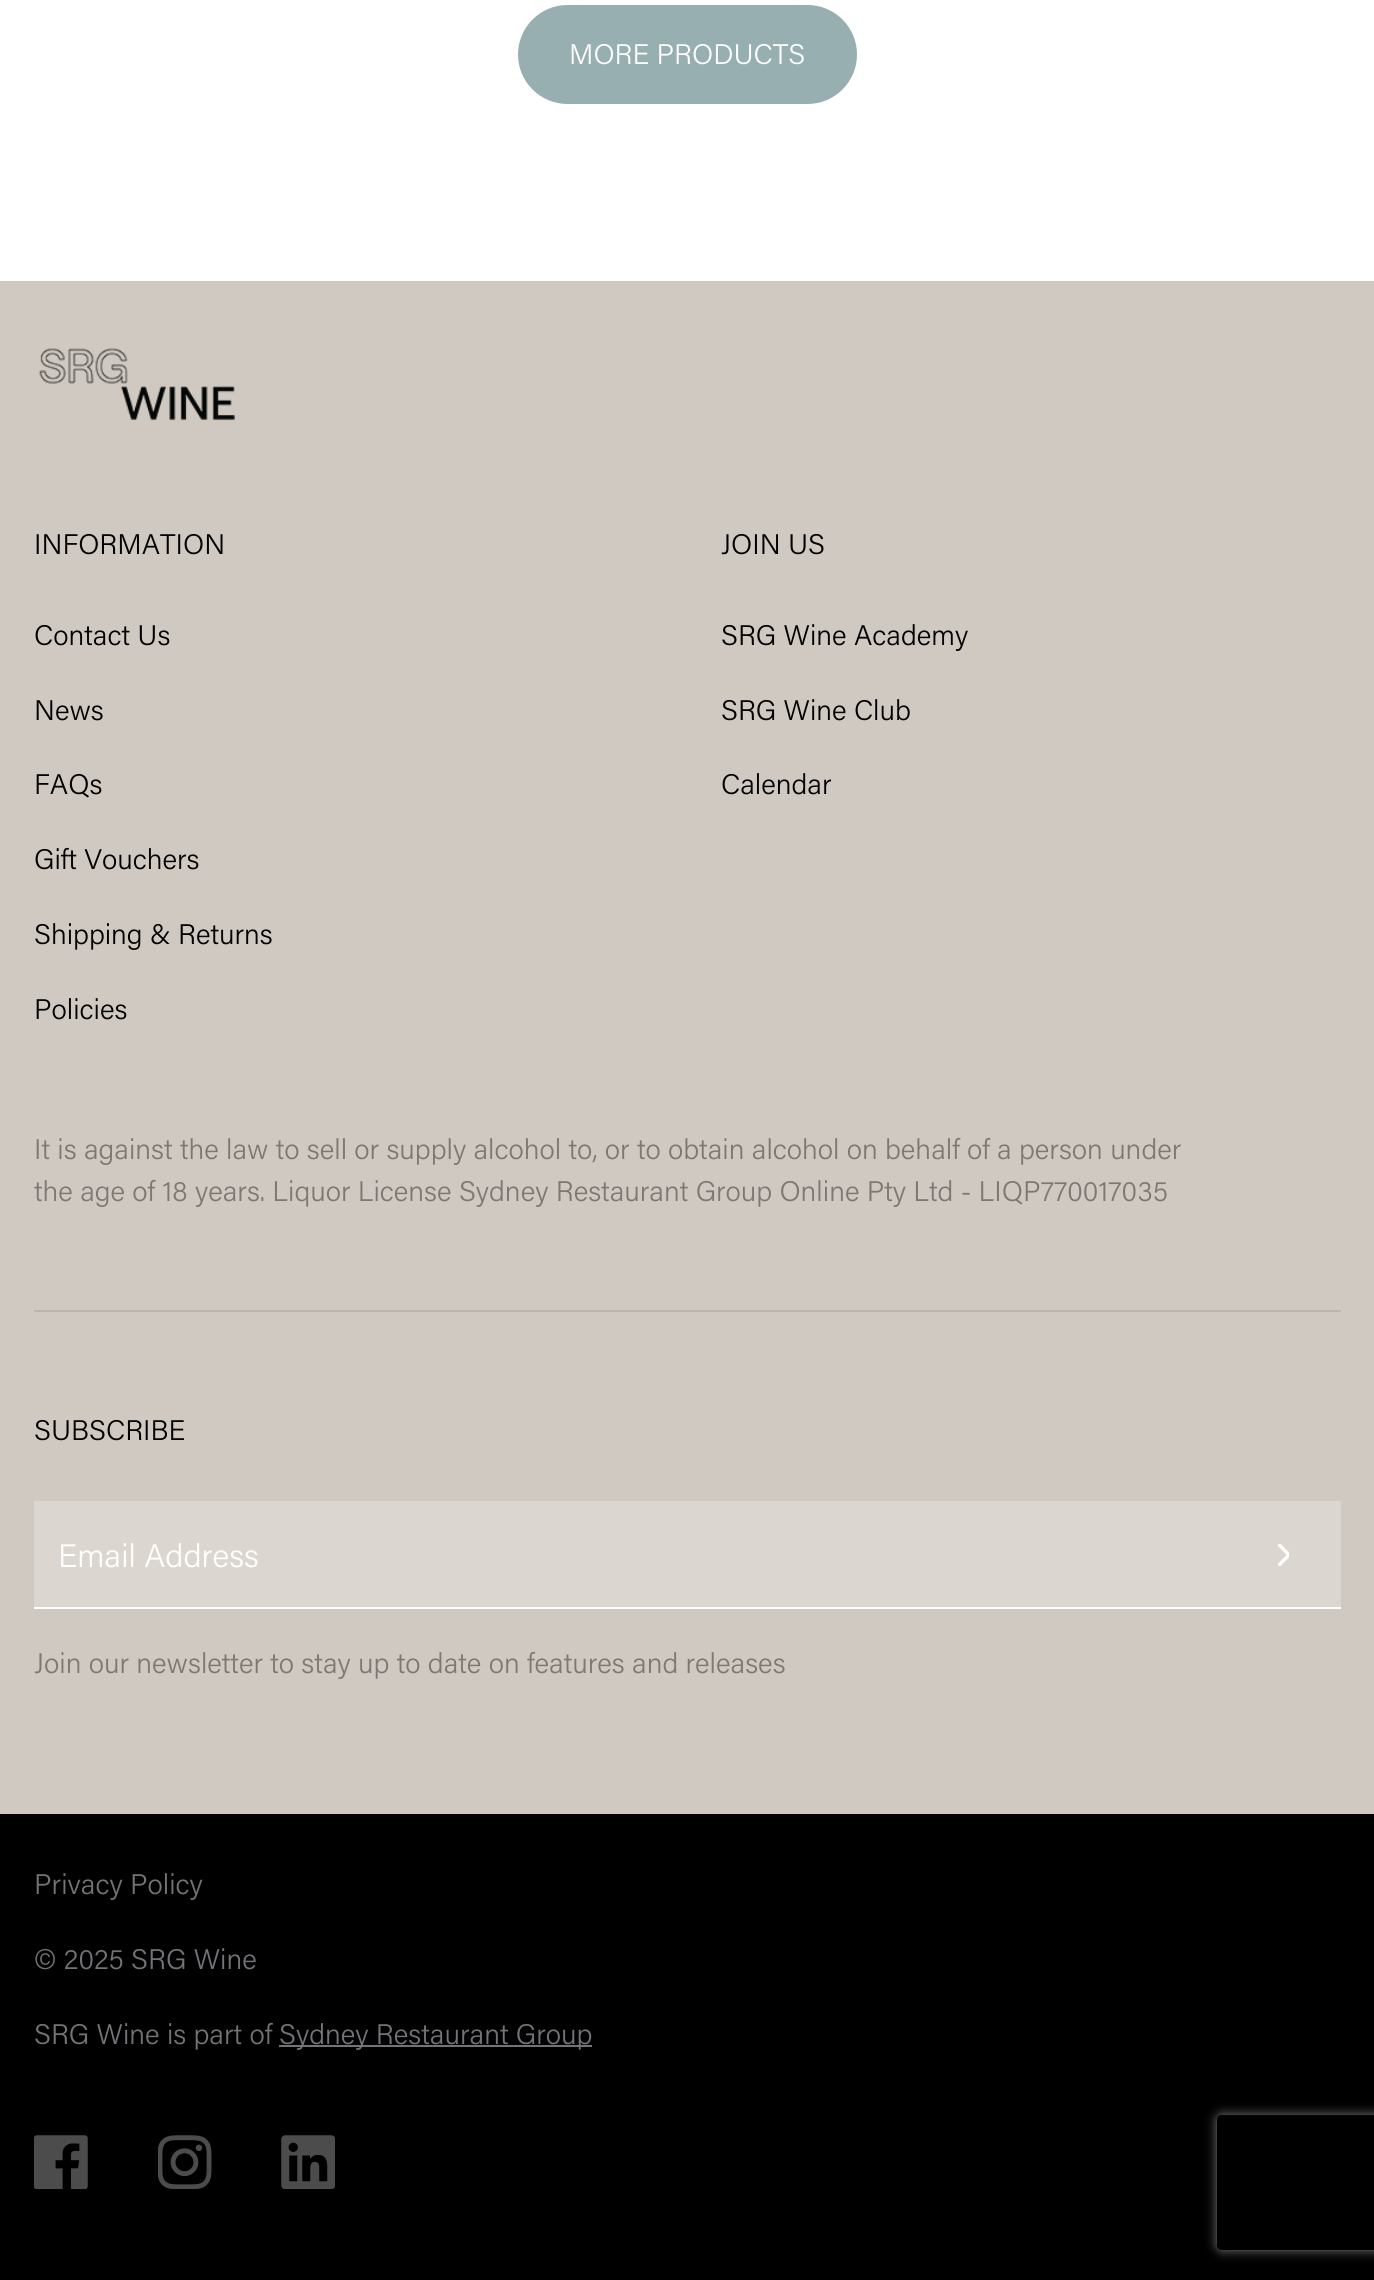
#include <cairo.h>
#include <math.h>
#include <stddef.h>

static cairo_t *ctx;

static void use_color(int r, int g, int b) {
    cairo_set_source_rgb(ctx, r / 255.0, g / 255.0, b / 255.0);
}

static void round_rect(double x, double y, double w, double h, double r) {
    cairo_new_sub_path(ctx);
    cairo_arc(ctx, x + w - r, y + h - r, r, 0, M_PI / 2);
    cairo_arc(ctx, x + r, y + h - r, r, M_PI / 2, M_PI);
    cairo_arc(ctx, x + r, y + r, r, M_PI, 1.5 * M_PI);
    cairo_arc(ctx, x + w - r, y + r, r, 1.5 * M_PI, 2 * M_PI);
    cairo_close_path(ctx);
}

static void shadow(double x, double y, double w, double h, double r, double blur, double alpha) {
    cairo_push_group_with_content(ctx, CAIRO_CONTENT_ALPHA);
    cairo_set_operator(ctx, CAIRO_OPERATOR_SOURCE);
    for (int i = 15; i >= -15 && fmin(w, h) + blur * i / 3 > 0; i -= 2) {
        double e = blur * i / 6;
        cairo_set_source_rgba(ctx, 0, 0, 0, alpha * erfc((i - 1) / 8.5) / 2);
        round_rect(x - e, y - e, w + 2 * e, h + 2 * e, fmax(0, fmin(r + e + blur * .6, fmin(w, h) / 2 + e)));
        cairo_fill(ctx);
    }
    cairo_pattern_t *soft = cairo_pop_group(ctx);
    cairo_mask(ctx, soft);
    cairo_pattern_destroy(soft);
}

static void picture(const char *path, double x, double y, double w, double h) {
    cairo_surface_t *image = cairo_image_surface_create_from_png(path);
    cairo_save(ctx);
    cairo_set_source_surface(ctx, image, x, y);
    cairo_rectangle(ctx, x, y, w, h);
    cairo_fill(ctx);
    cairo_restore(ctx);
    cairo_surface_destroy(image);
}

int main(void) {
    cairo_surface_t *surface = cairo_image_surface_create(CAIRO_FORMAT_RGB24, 1374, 2280);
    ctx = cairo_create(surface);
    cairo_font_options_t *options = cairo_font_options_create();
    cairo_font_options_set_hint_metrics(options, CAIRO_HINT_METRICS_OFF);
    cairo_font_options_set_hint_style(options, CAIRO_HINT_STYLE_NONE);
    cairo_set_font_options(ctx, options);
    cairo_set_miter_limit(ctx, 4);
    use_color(255, 255, 255);
    cairo_paint(ctx);
    use_color(151, 175, 177);
    round_rect(519, 6, 337, 97, 48.5);
    cairo_fill_preserve(ctx);
    cairo_stroke(ctx);
    cairo_select_font_face(ctx, "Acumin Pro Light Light", CAIRO_FONT_SLANT_NORMAL, CAIRO_FONT_WEIGHT_NORMAL);
    cairo_set_font_size(ctx, 28.35);
    use_color(255, 255, 255);
    cairo_move_to(ctx, 569, 64);
    cairo_show_text(ctx, "MORE PRODUCTS");
    use_color(208, 201, 193);
    cairo_rectangle(ctx, 0, 281, 1374, 1533);
    cairo_fill(ctx);
    picture("img1.png", 39, 348, 196, 73);
    use_color(0, 0, 0);
    cairo_move_to(ctx, 34, 554);
    cairo_show_text(ctx, "INFORMATION");
    cairo_move_to(ctx, 34, 645);
    cairo_show_text(ctx, "Contact Us");
    cairo_move_to(ctx, 34, 720);
    cairo_show_text(ctx, "News");
    cairo_move_to(ctx, 34, 794);
    cairo_show_text(ctx, "FAQs");
    cairo_move_to(ctx, 34, 869);
    cairo_show_text(ctx, "Gift Vouchers");
    cairo_move_to(ctx, 34, 944);
    cairo_show_text(ctx, "Shipping & Returns");
    cairo_move_to(ctx, 34, 1019);
    cairo_show_text(ctx, "Policies");
    cairo_move_to(ctx, 721, 554);
    cairo_show_text(ctx, "JOIN US");
    cairo_move_to(ctx, 721, 645);
    cairo_show_text(ctx, "SRG Wine Academy");
    cairo_move_to(ctx, 721, 720);
    cairo_show_text(ctx, "SRG Wine Club");
    cairo_move_to(ctx, 721, 794);
    cairo_show_text(ctx, "Calendar");
    use_color(125, 120, 116);
    cairo_move_to(ctx, 34, 1159);
    cairo_show_text(ctx, "It is against the law to sell or supply alcohol to, or to obtain alcohol on behalf of a person under");
    cairo_move_to(ctx, 34, 1201);
    cairo_show_text(ctx, "the age of 18 years. Liquor License Sydney Restaurant Group Online Pty Ltd - LIQP770017035");
    use_color(187, 181, 174);
    cairo_rectangle(ctx, 34, 1310, 1307, 2);
    cairo_fill(ctx);
    use_color(0, 0, 0);
    cairo_move_to(ctx, 34, 1440);
    cairo_show_text(ctx, "SUBSCRIBE");
    use_color(219, 214, 208);
    cairo_rectangle(ctx, 34, 1501, 1307, 106);
    cairo_fill(ctx);
    use_color(255, 255, 255);
    cairo_rectangle(ctx, 34, 1607, 1307, 2);
    cairo_fill(ctx);
    cairo_set_font_size(ctx, 32.5);
    cairo_move_to(ctx, 58, 1567);
    cairo_show_text(ctx, "Email Address");
    cairo_save(ctx);
    cairo_rectangle(ctx, 1278, 1544, 11, 22);
    cairo_clip(ctx);
    cairo_new_path(ctx);
    cairo_move_to(ctx, 1278, 1543.5);
    cairo_line_to(ctx, 1289, 1555);
    cairo_line_to(ctx, 1278, 1566);
    cairo_set_line_width(ctx, 3.4);
    cairo_stroke(ctx);
    cairo_restore(ctx);
    use_color(0, 0, 0);
    cairo_rectangle(ctx, 0, 1814, 1374, 466);
    cairo_fill(ctx);
    cairo_save(ctx);
    cairo_set_fill_rule(ctx, CAIRO_FILL_RULE_EVEN_ODD);
    cairo_new_path(ctx);
    cairo_move_to(ctx, 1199, 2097);
    cairo_line_to(ctx, 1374, 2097);
    cairo_line_to(ctx, 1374, 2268);
    cairo_line_to(ctx, 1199, 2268);
    cairo_close_path(ctx);
    cairo_move_to(ctx, 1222, 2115);
    cairo_line_to(ctx, 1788, 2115);
    cairo_curve_to(ctx, 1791, 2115, 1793, 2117, 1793, 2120);
    cairo_line_to(ctx, 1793, 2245);
    cairo_curve_to(ctx, 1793, 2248, 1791, 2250, 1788, 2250);
    cairo_line_to(ctx, 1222, 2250);
    cairo_curve_to(ctx, 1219, 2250, 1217, 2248, 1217, 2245);
    cairo_line_to(ctx, 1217, 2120);
    cairo_curve_to(ctx, 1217, 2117, 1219, 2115, 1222, 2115);
    cairo_close_path(ctx);
    cairo_clip(ctx);
    use_color(128, 128, 128);
    shadow(1217, 2115, 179, 135, 5, 5.5, 1);
    cairo_restore(ctx);
    cairo_set_font_size(ctx, 28.35);
    use_color(125, 120, 116);
    cairo_move_to(ctx, 34, 1673);
    cairo_show_text(ctx, "Join our newsletter to stay up to date on features and releases");
    use_color(115, 116, 120);
    cairo_move_to(ctx, 34, 1894);
    cairo_show_text(ctx, "Privacy Policy");
    cairo_move_to(ctx, 34, 1969);
    cairo_show_text(ctx, "© 2025 SRG Wine");
    cairo_move_to(ctx, 34, 2044);
    cairo_show_text(ctx, "SRG Wine is part of");
    cairo_rectangle(ctx, 279, 2045, 313, 2);
    cairo_fill(ctx);
    cairo_move_to(ctx, 279, 2044);
    cairo_show_text(ctx, "Sydney Restaurant Group");
    picture("img2.png", 34, 2135, 54, 54);
    picture("img3.png", 158, 2135, 54, 54);
    picture("img4.png", 281, 2135, 54, 54);
    cairo_surface_write_to_png(surface, "result.png");
    cairo_font_options_destroy(options);
    cairo_destroy(ctx);
    cairo_surface_destroy(surface);
    return 0;
}
